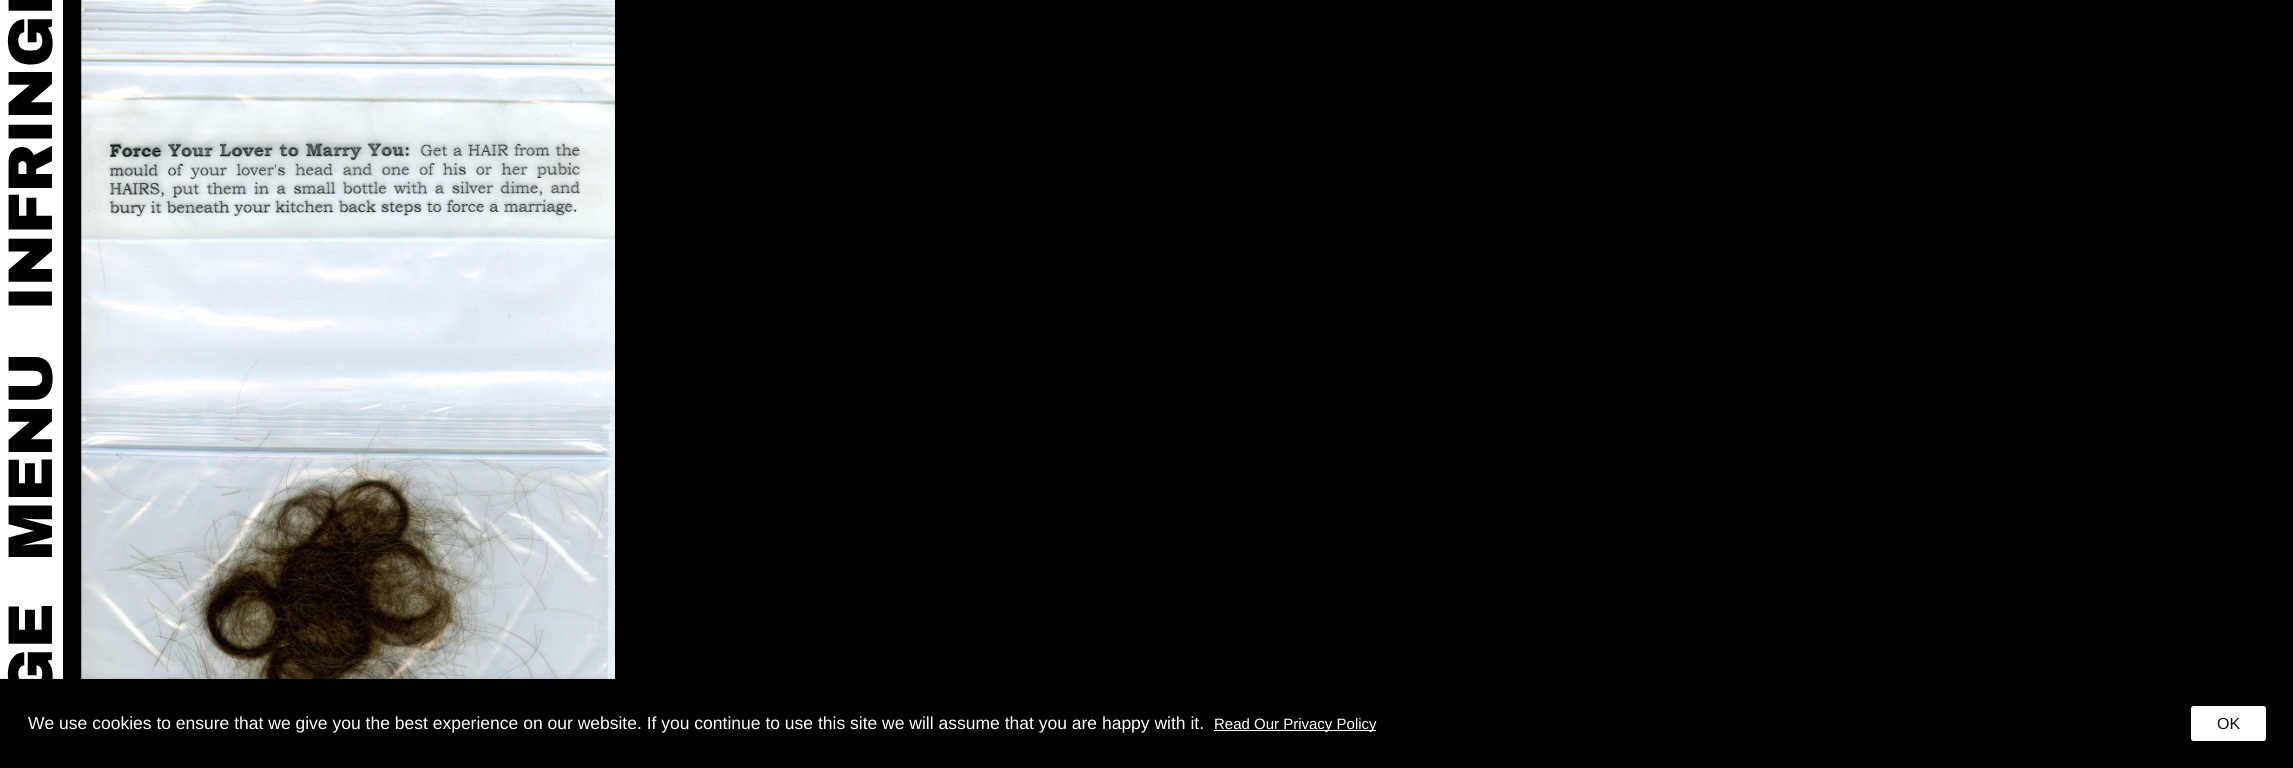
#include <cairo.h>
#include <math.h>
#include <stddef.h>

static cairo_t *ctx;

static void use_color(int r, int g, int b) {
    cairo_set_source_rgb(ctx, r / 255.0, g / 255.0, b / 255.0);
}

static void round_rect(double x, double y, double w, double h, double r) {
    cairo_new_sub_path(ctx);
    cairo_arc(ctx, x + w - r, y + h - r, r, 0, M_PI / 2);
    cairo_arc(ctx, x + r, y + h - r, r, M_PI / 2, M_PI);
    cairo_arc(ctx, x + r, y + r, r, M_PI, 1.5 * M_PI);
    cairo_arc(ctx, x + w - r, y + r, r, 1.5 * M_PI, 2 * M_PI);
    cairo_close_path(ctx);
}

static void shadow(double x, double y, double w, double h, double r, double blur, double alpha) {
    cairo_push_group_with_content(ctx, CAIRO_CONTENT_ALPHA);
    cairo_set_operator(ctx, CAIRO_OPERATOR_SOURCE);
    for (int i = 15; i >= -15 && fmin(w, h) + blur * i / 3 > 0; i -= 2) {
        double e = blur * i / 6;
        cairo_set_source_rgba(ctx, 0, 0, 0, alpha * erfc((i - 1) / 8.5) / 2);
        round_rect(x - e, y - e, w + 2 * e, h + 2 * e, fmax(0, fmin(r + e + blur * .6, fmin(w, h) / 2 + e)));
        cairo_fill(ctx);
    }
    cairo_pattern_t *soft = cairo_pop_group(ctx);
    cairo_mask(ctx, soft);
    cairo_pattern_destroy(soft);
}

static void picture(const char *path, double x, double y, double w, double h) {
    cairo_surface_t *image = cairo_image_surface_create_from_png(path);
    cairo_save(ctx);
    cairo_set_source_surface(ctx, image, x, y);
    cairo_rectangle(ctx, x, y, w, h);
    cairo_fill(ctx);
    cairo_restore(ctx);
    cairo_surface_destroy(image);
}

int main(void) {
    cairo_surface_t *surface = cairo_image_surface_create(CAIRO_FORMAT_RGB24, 2293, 768);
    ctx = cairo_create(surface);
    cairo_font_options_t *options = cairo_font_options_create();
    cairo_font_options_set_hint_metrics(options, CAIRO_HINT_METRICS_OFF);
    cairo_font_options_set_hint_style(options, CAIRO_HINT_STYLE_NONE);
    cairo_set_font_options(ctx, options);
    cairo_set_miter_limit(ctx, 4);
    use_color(255, 255, 255);
    cairo_paint(ctx);
    picture("img1.png", 7, 0, 46, 679);
    use_color(0, 0, 0);
    cairo_rectangle(ctx, 63, 0, 2230, 679);
    cairo_fill(ctx);
    picture("img2.png", 81, 0, 534, 679);
    use_color(0, 0, 0);
    shadow(0, 685, 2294, 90, 0, 6, 0.5);
    use_color(0, 0, 0);
    cairo_rectangle(ctx, 0, 679, 2293, 89);
    cairo_fill(ctx);
    cairo_select_font_face(ctx, "Liberation Sans", CAIRO_FONT_SLANT_NORMAL, CAIRO_FONT_WEIGHT_NORMAL);
    cairo_set_font_size(ctx, 17.5);
    use_color(255, 255, 255);
    cairo_move_to(ctx, 28, 729);
    cairo_show_text(ctx, "We use cookies to ensure that we give you the best experience on our website. If you continue to use this site we will assume that you are happy with it.");
    cairo_rectangle(ctx, 1214, 730, 162, 1);
    cairo_fill(ctx);
    cairo_set_font_size(ctx, 15);
    cairo_move_to(ctx, 1214, 729);
    cairo_show_text(ctx, "Read Our Privacy Policy");
    round_rect(2191, 706, 75, 35, 2.5);
    cairo_fill(ctx);
    cairo_set_font_size(ctx, 16);
    use_color(10, 10, 10);
    cairo_move_to(ctx, 2217, 729);
    cairo_show_text(ctx, "OK");
    cairo_surface_write_to_png(surface, "result.png");
    cairo_font_options_destroy(options);
    cairo_destroy(ctx);
    cairo_surface_destroy(surface);
    return 0;
}
